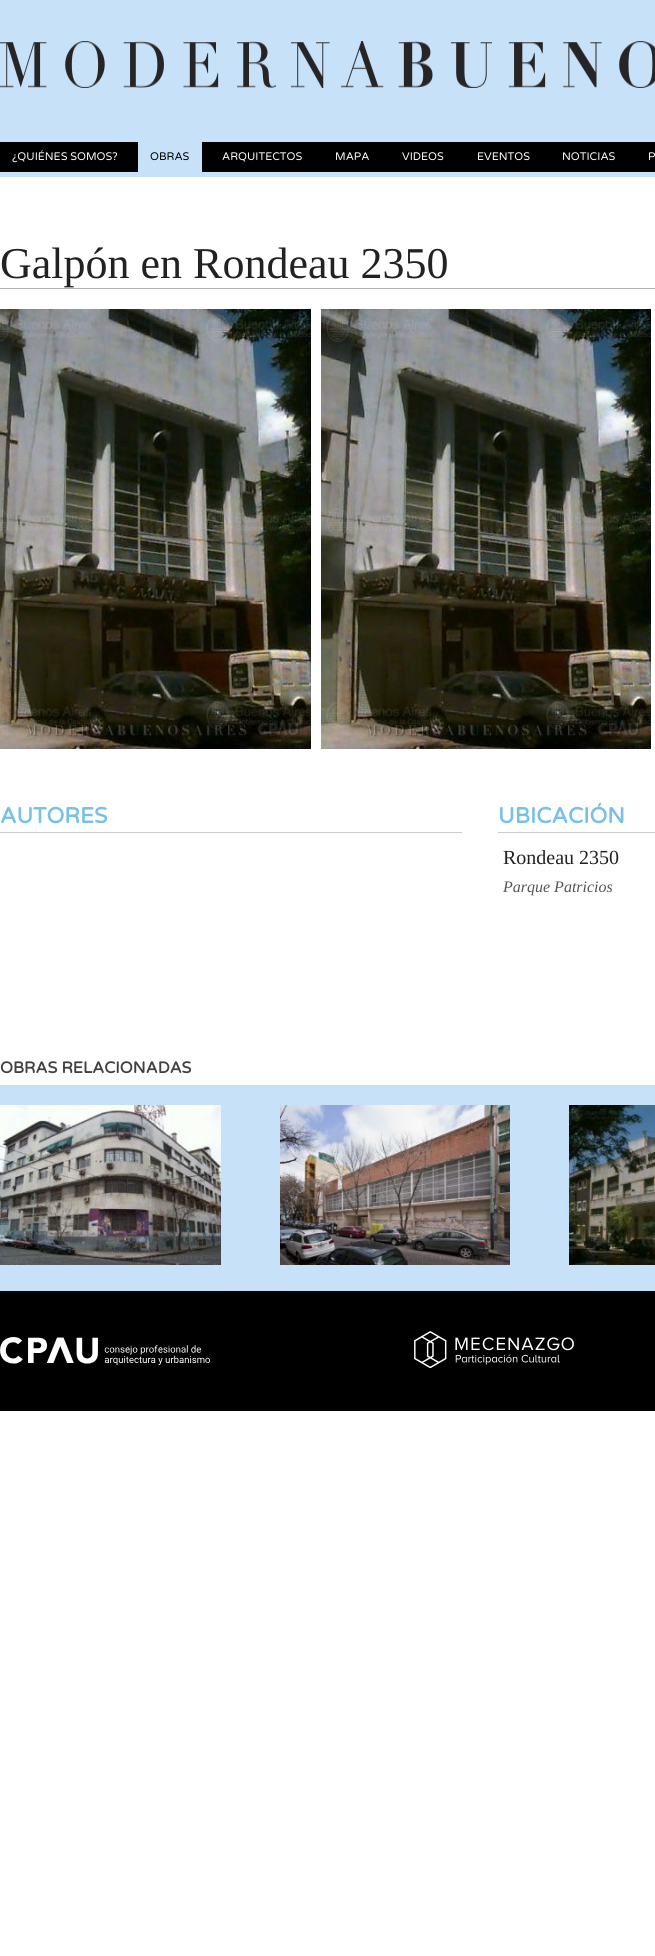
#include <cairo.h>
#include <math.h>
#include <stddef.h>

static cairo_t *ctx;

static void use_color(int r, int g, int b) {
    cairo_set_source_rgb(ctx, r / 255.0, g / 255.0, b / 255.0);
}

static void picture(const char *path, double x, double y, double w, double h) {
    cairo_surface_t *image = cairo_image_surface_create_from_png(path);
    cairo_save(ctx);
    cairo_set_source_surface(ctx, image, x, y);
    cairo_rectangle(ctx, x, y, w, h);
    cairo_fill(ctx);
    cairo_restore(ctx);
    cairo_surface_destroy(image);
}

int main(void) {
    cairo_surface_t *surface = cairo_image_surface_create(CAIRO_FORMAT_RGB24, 655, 1956);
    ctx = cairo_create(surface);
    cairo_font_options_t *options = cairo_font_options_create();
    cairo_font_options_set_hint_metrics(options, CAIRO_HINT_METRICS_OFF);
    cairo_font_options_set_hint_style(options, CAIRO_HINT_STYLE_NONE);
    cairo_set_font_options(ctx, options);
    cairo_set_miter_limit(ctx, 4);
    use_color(255, 255, 255);
    cairo_paint(ctx);
    picture("img1.png", 0, 0, 655, 142);
    picture("img2.png", 0, 41, 655, 47);
    use_color(0, 0, 0);
    cairo_rectangle(ctx, 0, 142, 655, 30);
    cairo_fill(ctx);
    use_color(198, 225, 248);
    cairo_rectangle(ctx, 0, 172, 655, 5);
    cairo_fill(ctx);
    cairo_select_font_face(ctx, "Varela Round", CAIRO_FONT_SLANT_NORMAL, CAIRO_FONT_WEIGHT_NORMAL);
    cairo_set_font_size(ctx, 11);
    use_color(255, 255, 255);
    cairo_move_to(ctx, 12, 160);
    cairo_show_text(ctx, "¿QUIÉNES SOMOS?");
    use_color(198, 225, 248);
    cairo_rectangle(ctx, 138, 142, 64, 30);
    cairo_fill(ctx);
    use_color(0, 0, 0);
    cairo_move_to(ctx, 150, 160);
    cairo_show_text(ctx, "OBRAS");
    use_color(255, 255, 255);
    cairo_move_to(ctx, 222, 160);
    cairo_show_text(ctx, "ARQUITECTOS");
    cairo_move_to(ctx, 335, 160);
    cairo_show_text(ctx, "MAPA");
    cairo_move_to(ctx, 402, 160);
    cairo_show_text(ctx, "VIDEOS");
    cairo_move_to(ctx, 477, 160);
    cairo_show_text(ctx, "EVENTOS");
    cairo_move_to(ctx, 562, 160);
    cairo_show_text(ctx, "NOTICIAS");
    cairo_move_to(ctx, 648, 160);
    cairo_show_text(ctx, "P");
    cairo_select_font_face(ctx, "Liberation Serif", CAIRO_FONT_SLANT_NORMAL, CAIRO_FONT_WEIGHT_NORMAL);
    cairo_set_font_size(ctx, 44);
    use_color(34, 34, 34);
    cairo_move_to(ctx, 0, 278);
    cairo_show_text(ctx, "Galpón en Rondeau 2350");
    use_color(178, 178, 178);
    cairo_rectangle(ctx, 0, 288, 655, 1);
    cairo_fill(ctx);
    picture("img3.png", 0, 309, 311, 440);
    picture("img4.png", 321, 309, 330, 440);
    use_color(204, 204, 204);
    cairo_rectangle(ctx, 0, 832, 462, 1);
    cairo_fill(ctx);
    cairo_select_font_face(ctx, "Varela Round", CAIRO_FONT_SLANT_NORMAL, CAIRO_FONT_WEIGHT_BOLD);
    cairo_set_font_size(ctx, 22);
    use_color(119, 192, 231);
    cairo_move_to(ctx, 0, 823);
    cairo_show_text(ctx, "AUTORES");
    use_color(204, 204, 204);
    cairo_rectangle(ctx, 498, 832, 157, 1);
    cairo_fill(ctx);
    use_color(119, 192, 231);
    cairo_move_to(ctx, 498, 823);
    cairo_show_text(ctx, "UBICACIÓN");
    cairo_select_font_face(ctx, "Liberation Serif", CAIRO_FONT_SLANT_NORMAL, CAIRO_FONT_WEIGHT_NORMAL);
    cairo_set_font_size(ctx, 20);
    use_color(34, 34, 34);
    cairo_move_to(ctx, 503, 864);
    cairo_show_text(ctx, "Rondeau 2350");
    cairo_select_font_face(ctx, "Liberation Serif", CAIRO_FONT_SLANT_ITALIC, CAIRO_FONT_WEIGHT_NORMAL);
    cairo_set_font_size(ctx, 16);
    use_color(85, 85, 85);
    cairo_move_to(ctx, 503, 892);
    cairo_show_text(ctx, "Parque Patricios");
    cairo_select_font_face(ctx, "Varela Round", CAIRO_FONT_SLANT_NORMAL, CAIRO_FONT_WEIGHT_BOLD);
    use_color(65, 65, 65);
    cairo_move_to(ctx, 0, 1073);
    cairo_show_text(ctx, "OBRAS RELACIONADAS");
    use_color(198, 225, 248);
    cairo_rectangle(ctx, 0, 1085, 655, 206);
    cairo_fill(ctx);
    picture("img5.png", 0, 1105, 221, 160);
    picture("img6.png", 280, 1105, 230, 160);
    picture("img7.png", 569, 1105, 86, 160);
    use_color(0, 0, 0);
    cairo_rectangle(ctx, 0, 1291, 655, 120);
    cairo_fill(ctx);
    picture("img8.png", 0, 1337, 210, 28);
    picture("img9.png", 414, 1331, 160, 37);
    cairo_surface_write_to_png(surface, "result.png");
    cairo_font_options_destroy(options);
    cairo_destroy(ctx);
    cairo_surface_destroy(surface);
    return 0;
}
